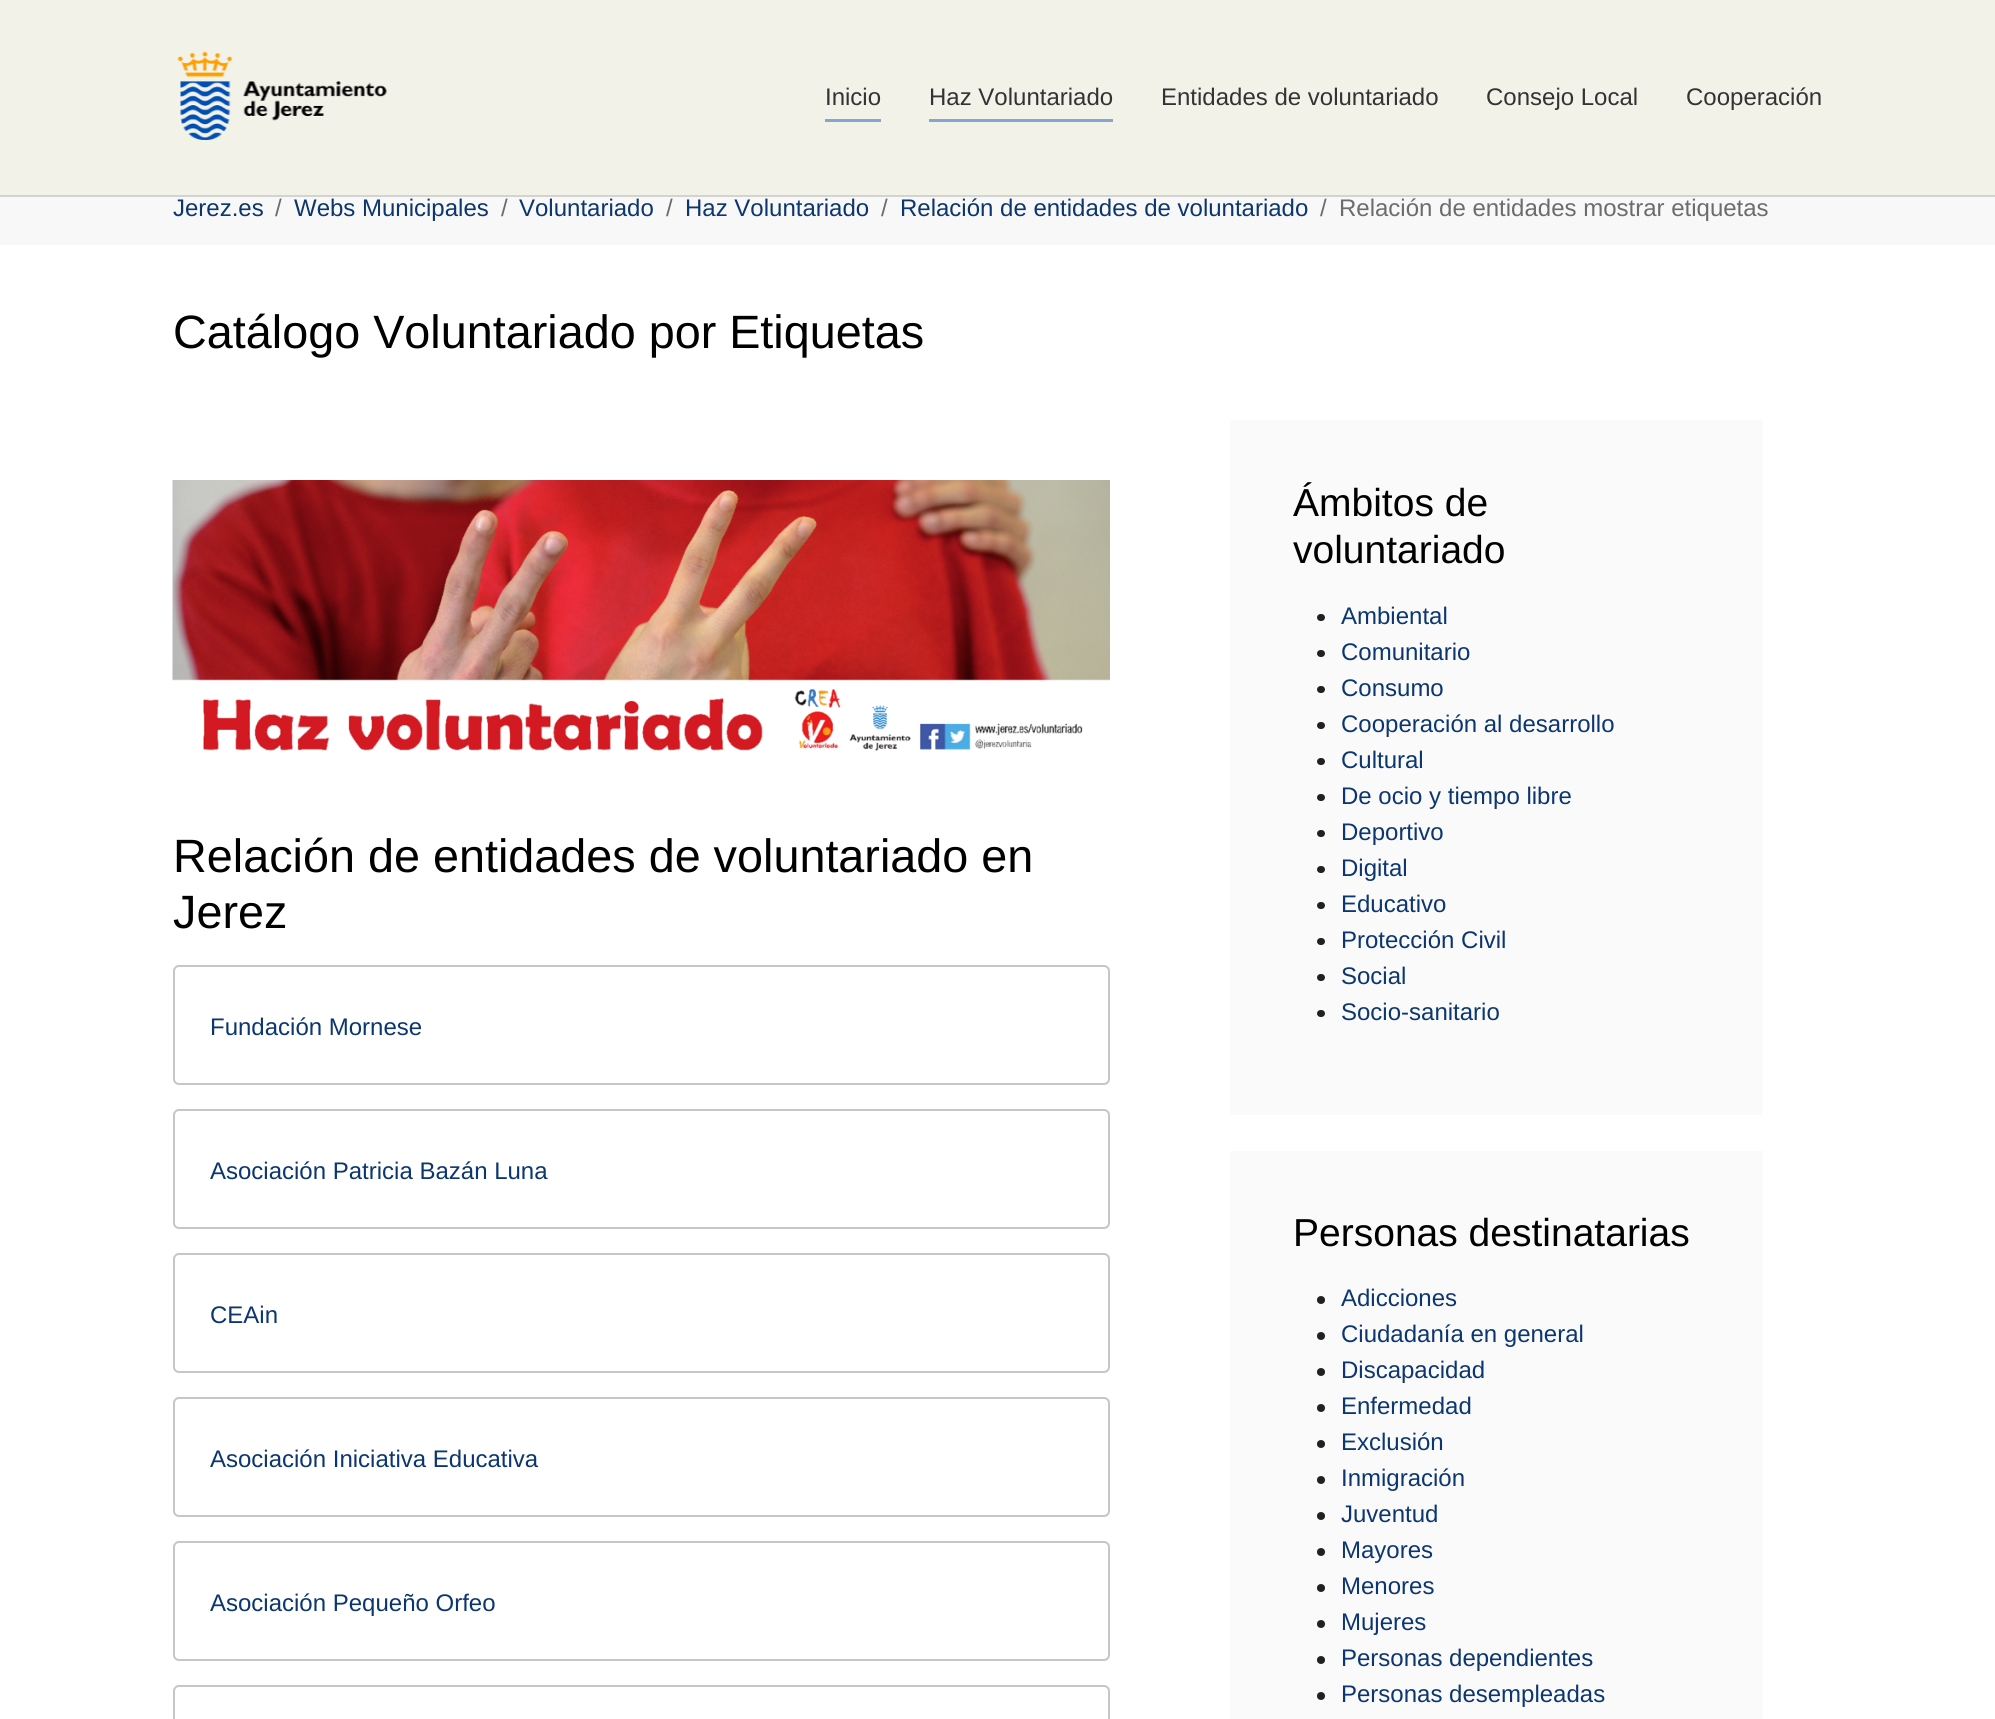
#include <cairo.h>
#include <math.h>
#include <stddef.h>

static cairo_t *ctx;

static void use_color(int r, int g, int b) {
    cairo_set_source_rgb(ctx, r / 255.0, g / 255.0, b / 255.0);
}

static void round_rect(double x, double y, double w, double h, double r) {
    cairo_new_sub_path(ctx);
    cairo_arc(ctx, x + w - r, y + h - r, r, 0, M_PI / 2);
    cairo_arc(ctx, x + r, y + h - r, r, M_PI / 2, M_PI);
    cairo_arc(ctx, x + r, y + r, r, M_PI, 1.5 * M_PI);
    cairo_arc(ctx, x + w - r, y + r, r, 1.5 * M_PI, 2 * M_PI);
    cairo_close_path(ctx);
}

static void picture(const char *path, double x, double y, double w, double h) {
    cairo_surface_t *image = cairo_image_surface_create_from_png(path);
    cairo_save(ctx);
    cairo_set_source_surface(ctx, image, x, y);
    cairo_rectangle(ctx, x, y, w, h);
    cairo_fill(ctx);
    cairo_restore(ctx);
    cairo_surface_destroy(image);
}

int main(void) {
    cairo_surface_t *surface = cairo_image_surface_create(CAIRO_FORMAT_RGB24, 1995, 1719);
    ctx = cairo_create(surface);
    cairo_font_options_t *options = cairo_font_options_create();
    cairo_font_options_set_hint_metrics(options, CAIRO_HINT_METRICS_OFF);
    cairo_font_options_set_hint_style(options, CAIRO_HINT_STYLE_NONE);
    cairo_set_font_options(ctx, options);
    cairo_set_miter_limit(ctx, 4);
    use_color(255, 255, 255);
    cairo_paint(ctx);
    use_color(211, 211, 211);
    cairo_rectangle(ctx, 0, 195, 1995, 2);
    cairo_fill(ctx);
    use_color(243, 242, 233);
    cairo_rectangle(ctx, 0, 0, 1995, 195);
    cairo_fill(ctx);
    picture("img1.png", 177, 51, 210, 89);
    cairo_select_font_face(ctx, "Liberation Sans", CAIRO_FONT_SLANT_NORMAL, CAIRO_FONT_WEIGHT_NORMAL);
    cairo_set_font_size(ctx, 24);
    use_color(51, 51, 51);
    cairo_move_to(ctx, 825, 105);
    cairo_show_text(ctx, "Inicio");
    use_color(132, 166, 209);
    cairo_rectangle(ctx, 825, 119, 56, 3);
    cairo_fill(ctx);
    use_color(51, 51, 51);
    cairo_move_to(ctx, 929, 105);
    cairo_show_text(ctx, "Haz Voluntariado");
    use_color(132, 166, 209);
    cairo_rectangle(ctx, 929, 119, 184, 3);
    cairo_fill(ctx);
    use_color(51, 51, 51);
    cairo_move_to(ctx, 1161, 105);
    cairo_show_text(ctx, "Entidades de voluntariado");
    cairo_move_to(ctx, 1486, 105);
    cairo_show_text(ctx, "Consejo Local");
    cairo_move_to(ctx, 1686, 105);
    cairo_show_text(ctx, "Cooperación");
    use_color(248, 248, 248);
    cairo_rectangle(ctx, 0, 197, 1995, 48);
    cairo_fill(ctx);
    use_color(12, 54, 111);
    cairo_move_to(ctx, 173, 216);
    cairo_show_text(ctx, "Jerez.es");
    use_color(108, 108, 108);
    cairo_move_to(ctx, 275, 216);
    cairo_show_text(ctx, "/");
    use_color(12, 54, 111);
    cairo_move_to(ctx, 294, 216);
    cairo_show_text(ctx, "Webs Municipales");
    use_color(108, 108, 108);
    cairo_move_to(ctx, 501, 216);
    cairo_show_text(ctx, "/");
    use_color(12, 54, 111);
    cairo_move_to(ctx, 519, 216);
    cairo_show_text(ctx, "Voluntariado");
    use_color(108, 108, 108);
    cairo_move_to(ctx, 666, 216);
    cairo_show_text(ctx, "/");
    use_color(12, 54, 111);
    cairo_move_to(ctx, 685, 216);
    cairo_show_text(ctx, "Haz Voluntariado");
    use_color(108, 108, 108);
    cairo_move_to(ctx, 881, 216);
    cairo_show_text(ctx, "/");
    use_color(12, 54, 111);
    cairo_move_to(ctx, 900, 216);
    cairo_show_text(ctx, "Relación de entidades de voluntariado");
    use_color(108, 108, 108);
    cairo_move_to(ctx, 1320, 216);
    cairo_show_text(ctx, "/");
    cairo_move_to(ctx, 1339, 216);
    cairo_show_text(ctx, "Relación de entidades mostrar etiquetas");
    cairo_set_font_size(ctx, 46.75);
    use_color(0, 0, 0);
    cairo_move_to(ctx, 173, 348);
    cairo_show_text(ctx, "Catálogo Voluntariado por Etiquetas");
    picture("img2.png", 172, 480, 938, 271);
    cairo_move_to(ctx, 173, 872);
    cairo_show_text(ctx, "Relación de entidades de voluntariado en");
    cairo_move_to(ctx, 173, 928);
    cairo_show_text(ctx, "Jerez");
    round_rect(174, 966, 935, 118, 5);
    use_color(198, 198, 198);
    cairo_stroke(ctx);
    cairo_set_font_size(ctx, 24);
    use_color(12, 54, 111);
    cairo_move_to(ctx, 210, 1035);
    cairo_show_text(ctx, "Fundación Mornese");
    round_rect(174, 1110, 935, 118, 5);
    use_color(198, 198, 198);
    cairo_stroke(ctx);
    use_color(12, 54, 111);
    cairo_move_to(ctx, 210, 1179);
    cairo_show_text(ctx, "Asociación Patricia Bazán Luna");
    round_rect(174, 1254, 935, 118, 5);
    use_color(198, 198, 198);
    cairo_stroke(ctx);
    use_color(12, 54, 111);
    cairo_move_to(ctx, 210, 1323);
    cairo_show_text(ctx, "CEAin");
    round_rect(174, 1398, 935, 118, 5);
    use_color(198, 198, 198);
    cairo_stroke(ctx);
    use_color(12, 54, 111);
    cairo_move_to(ctx, 210, 1467);
    cairo_show_text(ctx, "Asociación Iniciativa Educativa");
    round_rect(174, 1542, 935, 118, 5);
    use_color(198, 198, 198);
    cairo_stroke(ctx);
    use_color(12, 54, 111);
    cairo_move_to(ctx, 210, 1611);
    cairo_show_text(ctx, "Asociación Pequeño Orfeo");
    round_rect(174, 1686, 935, 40, 5);
    use_color(198, 198, 198);
    cairo_stroke(ctx);
    use_color(250, 250, 250);
    cairo_rectangle(ctx, 1230, 420, 533, 695);
    cairo_fill(ctx);
    cairo_set_font_size(ctx, 39);
    use_color(0, 0, 0);
    cairo_move_to(ctx, 1293, 516);
    cairo_show_text(ctx, "Ámbitos de");
    cairo_move_to(ctx, 1293, 563);
    cairo_show_text(ctx, "voluntariado");
    use_color(33, 33, 33);
    round_rect(1317, 614, 8, 7, 3.5);
    cairo_fill(ctx);
    cairo_set_font_size(ctx, 24);
    use_color(12, 54, 111);
    cairo_move_to(ctx, 1341, 624);
    cairo_show_text(ctx, "Ambiental");
    use_color(33, 33, 33);
    round_rect(1317, 650, 8, 7, 3.5);
    cairo_fill(ctx);
    use_color(12, 54, 111);
    cairo_move_to(ctx, 1341, 660);
    cairo_show_text(ctx, "Comunitario");
    use_color(33, 33, 33);
    round_rect(1317, 686, 8, 7, 3.5);
    cairo_fill(ctx);
    use_color(12, 54, 111);
    cairo_move_to(ctx, 1341, 696);
    cairo_show_text(ctx, "Consumo");
    use_color(33, 33, 33);
    round_rect(1317, 722, 8, 7, 3.5);
    cairo_fill(ctx);
    use_color(12, 54, 111);
    cairo_move_to(ctx, 1341, 732);
    cairo_show_text(ctx, "Cooperación al desarrollo");
    use_color(33, 33, 33);
    round_rect(1317, 758, 8, 7, 3.5);
    cairo_fill(ctx);
    use_color(12, 54, 111);
    cairo_move_to(ctx, 1341, 768);
    cairo_show_text(ctx, "Cultural");
    use_color(33, 33, 33);
    round_rect(1317, 794, 8, 7, 3.5);
    cairo_fill(ctx);
    use_color(12, 54, 111);
    cairo_move_to(ctx, 1341, 804);
    cairo_show_text(ctx, "De ocio y tiempo libre");
    use_color(33, 33, 33);
    round_rect(1317, 830, 8, 7, 3.5);
    cairo_fill(ctx);
    use_color(12, 54, 111);
    cairo_move_to(ctx, 1341, 840);
    cairo_show_text(ctx, "Deportivo");
    use_color(33, 33, 33);
    round_rect(1317, 866, 8, 7, 3.5);
    cairo_fill(ctx);
    use_color(12, 54, 111);
    cairo_move_to(ctx, 1341, 876);
    cairo_show_text(ctx, "Digital");
    use_color(33, 33, 33);
    round_rect(1317, 902, 8, 7, 3.5);
    cairo_fill(ctx);
    use_color(12, 54, 111);
    cairo_move_to(ctx, 1341, 912);
    cairo_show_text(ctx, "Educativo");
    use_color(33, 33, 33);
    round_rect(1317, 938, 8, 7, 3.5);
    cairo_fill(ctx);
    use_color(12, 54, 111);
    cairo_move_to(ctx, 1341, 948);
    cairo_show_text(ctx, "Protección Civil");
    use_color(33, 33, 33);
    round_rect(1317, 974, 8, 7, 3.5);
    cairo_fill(ctx);
    use_color(12, 54, 111);
    cairo_move_to(ctx, 1341, 984);
    cairo_show_text(ctx, "Social");
    use_color(33, 33, 33);
    round_rect(1317, 1010, 8, 7, 3.5);
    cairo_fill(ctx);
    use_color(12, 54, 111);
    cairo_move_to(ctx, 1341, 1020);
    cairo_show_text(ctx, "Socio-sanitario");
    use_color(250, 250, 250);
    cairo_rectangle(ctx, 1230, 1151, 533, 568);
    cairo_fill(ctx);
    cairo_set_font_size(ctx, 39);
    use_color(0, 0, 0);
    cairo_move_to(ctx, 1293, 1246);
    cairo_show_text(ctx, "Personas destinatarias");
    use_color(33, 33, 33);
    cairo_new_path(ctx);
    cairo_arc(ctx, 1321, 1300, 4, 0, 2 * M_PI);
    cairo_fill(ctx);
    cairo_set_font_size(ctx, 24);
    use_color(12, 54, 111);
    cairo_move_to(ctx, 1341, 1306);
    cairo_show_text(ctx, "Adicciones");
    use_color(33, 33, 33);
    cairo_new_path(ctx);
    cairo_arc(ctx, 1321, 1336, 4, 0, 2 * M_PI);
    cairo_fill(ctx);
    use_color(12, 54, 111);
    cairo_move_to(ctx, 1341, 1342);
    cairo_show_text(ctx, "Ciudadanía en general");
    use_color(33, 33, 33);
    cairo_new_path(ctx);
    cairo_arc(ctx, 1321, 1372, 4, 0, 2 * M_PI);
    cairo_fill(ctx);
    use_color(12, 54, 111);
    cairo_move_to(ctx, 1341, 1378);
    cairo_show_text(ctx, "Discapacidad");
    use_color(33, 33, 33);
    cairo_new_path(ctx);
    cairo_arc(ctx, 1321, 1408, 4, 0, 2 * M_PI);
    cairo_fill(ctx);
    use_color(12, 54, 111);
    cairo_move_to(ctx, 1341, 1414);
    cairo_show_text(ctx, "Enfermedad");
    use_color(33, 33, 33);
    cairo_new_path(ctx);
    cairo_arc(ctx, 1321, 1444, 4, 0, 2 * M_PI);
    cairo_fill(ctx);
    use_color(12, 54, 111);
    cairo_move_to(ctx, 1341, 1450);
    cairo_show_text(ctx, "Exclusión");
    use_color(33, 33, 33);
    cairo_new_path(ctx);
    cairo_arc(ctx, 1321, 1480, 4, 0, 2 * M_PI);
    cairo_fill(ctx);
    use_color(12, 54, 111);
    cairo_move_to(ctx, 1341, 1486);
    cairo_show_text(ctx, "Inmigración");
    use_color(33, 33, 33);
    cairo_new_path(ctx);
    cairo_arc(ctx, 1321, 1516, 4, 0, 2 * M_PI);
    cairo_fill(ctx);
    use_color(12, 54, 111);
    cairo_move_to(ctx, 1341, 1522);
    cairo_show_text(ctx, "Juventud");
    use_color(33, 33, 33);
    cairo_new_path(ctx);
    cairo_arc(ctx, 1321, 1552, 4, 0, 2 * M_PI);
    cairo_fill(ctx);
    use_color(12, 54, 111);
    cairo_move_to(ctx, 1341, 1558);
    cairo_show_text(ctx, "Mayores");
    use_color(33, 33, 33);
    cairo_new_path(ctx);
    cairo_arc(ctx, 1321, 1588, 4, 0, 2 * M_PI);
    cairo_fill(ctx);
    use_color(12, 54, 111);
    cairo_move_to(ctx, 1341, 1594);
    cairo_show_text(ctx, "Menores");
    use_color(33, 33, 33);
    cairo_new_path(ctx);
    cairo_arc(ctx, 1321, 1624, 4, 0, 2 * M_PI);
    cairo_fill(ctx);
    use_color(12, 54, 111);
    cairo_move_to(ctx, 1341, 1630);
    cairo_show_text(ctx, "Mujeres");
    use_color(33, 33, 33);
    cairo_new_path(ctx);
    cairo_arc(ctx, 1321, 1660, 4, 0, 2 * M_PI);
    cairo_fill(ctx);
    use_color(12, 54, 111);
    cairo_move_to(ctx, 1341, 1666);
    cairo_show_text(ctx, "Personas dependientes");
    use_color(33, 33, 33);
    cairo_new_path(ctx);
    cairo_arc(ctx, 1321, 1696, 4, 0, 2 * M_PI);
    cairo_fill(ctx);
    use_color(12, 54, 111);
    cairo_move_to(ctx, 1341, 1702);
    cairo_show_text(ctx, "Personas desempleadas");
    cairo_surface_write_to_png(surface, "result.png");
    cairo_font_options_destroy(options);
    cairo_destroy(ctx);
    cairo_surface_destroy(surface);
    return 0;
}
